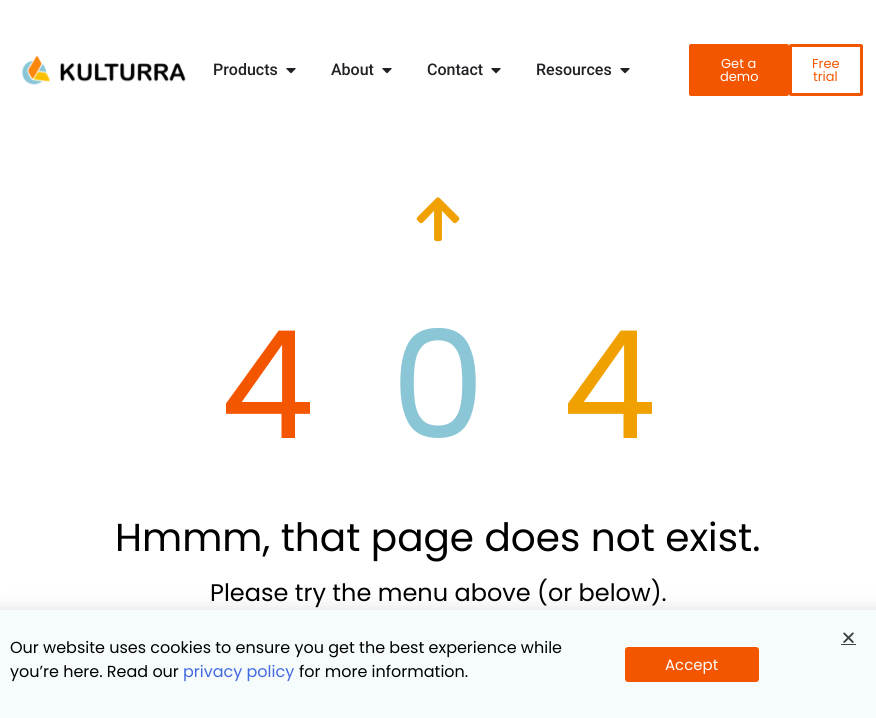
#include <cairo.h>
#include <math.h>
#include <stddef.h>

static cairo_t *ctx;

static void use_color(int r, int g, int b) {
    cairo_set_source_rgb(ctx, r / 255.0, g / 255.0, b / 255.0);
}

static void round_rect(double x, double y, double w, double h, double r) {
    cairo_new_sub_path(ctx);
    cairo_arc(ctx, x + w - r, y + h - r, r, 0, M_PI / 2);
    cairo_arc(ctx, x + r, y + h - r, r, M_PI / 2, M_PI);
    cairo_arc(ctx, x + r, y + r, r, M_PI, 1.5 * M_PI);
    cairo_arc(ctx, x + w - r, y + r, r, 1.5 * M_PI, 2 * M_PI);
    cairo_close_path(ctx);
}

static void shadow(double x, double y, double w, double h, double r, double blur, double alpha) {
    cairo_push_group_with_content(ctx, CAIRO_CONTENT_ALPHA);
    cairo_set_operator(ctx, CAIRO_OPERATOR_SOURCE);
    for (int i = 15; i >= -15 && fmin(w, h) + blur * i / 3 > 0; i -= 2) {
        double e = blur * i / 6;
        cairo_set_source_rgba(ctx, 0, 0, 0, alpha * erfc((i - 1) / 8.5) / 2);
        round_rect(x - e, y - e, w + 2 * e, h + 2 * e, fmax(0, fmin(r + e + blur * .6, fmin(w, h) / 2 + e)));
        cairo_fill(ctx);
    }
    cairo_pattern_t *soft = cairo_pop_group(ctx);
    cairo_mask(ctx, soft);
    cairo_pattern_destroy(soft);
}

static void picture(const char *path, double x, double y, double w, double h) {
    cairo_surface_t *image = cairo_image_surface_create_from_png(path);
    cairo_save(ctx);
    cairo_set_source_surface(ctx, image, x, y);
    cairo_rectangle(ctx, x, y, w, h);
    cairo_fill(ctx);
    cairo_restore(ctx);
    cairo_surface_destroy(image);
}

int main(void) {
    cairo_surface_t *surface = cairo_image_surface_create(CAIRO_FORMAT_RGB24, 876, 718);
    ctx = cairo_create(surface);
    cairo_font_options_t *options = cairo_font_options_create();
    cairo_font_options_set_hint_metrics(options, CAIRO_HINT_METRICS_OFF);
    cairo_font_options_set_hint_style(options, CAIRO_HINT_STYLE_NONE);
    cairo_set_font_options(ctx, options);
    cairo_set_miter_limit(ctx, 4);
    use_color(255, 255, 255);
    cairo_paint(ctx);
    picture("img1.png", 21, 55, 165, 30);
    cairo_select_font_face(ctx, "Roboto Medium", CAIRO_FONT_SLANT_NORMAL, CAIRO_FONT_WEIGHT_NORMAL);
    cairo_set_font_size(ctx, 16);
    use_color(31, 33, 36);
    cairo_move_to(ctx, 213, 75);
    cairo_show_text(ctx, "Products");
    picture("img2.png", 286, 68, 10, 6);
    cairo_move_to(ctx, 331, 75);
    cairo_show_text(ctx, "About");
    picture("img2.png", 382, 68, 10, 6);
    cairo_move_to(ctx, 427, 75);
    cairo_show_text(ctx, "Contact");
    picture("img2.png", 491, 68, 10, 6);
    cairo_move_to(ctx, 536, 75);
    cairo_show_text(ctx, "Resources");
    picture("img2.png", 620, 68, 10, 6);
    use_color(244, 86, 0);
    round_rect(690.5, 45.5, 97, 49, 0.5);
    cairo_fill_preserve(ctx);
    cairo_set_line_width(ctx, 3);
    cairo_stroke(ctx);
    cairo_select_font_face(ctx, "Poppins", CAIRO_FONT_SLANT_NORMAL, CAIRO_FONT_WEIGHT_NORMAL);
    cairo_set_font_size(ctx, 13);
    use_color(255, 255, 255);
    cairo_move_to(ctx, 721, 68);
    cairo_show_text(ctx, "Get a");
    cairo_move_to(ctx, 720, 81);
    cairo_show_text(ctx, "demo");
    round_rect(790.5, 45.5, 71, 49, 0.5);
    use_color(244, 86, 0);
    cairo_stroke(ctx);
    cairo_move_to(ctx, 812, 68);
    cairo_show_text(ctx, "Free");
    cairo_move_to(ctx, 813, 81);
    cairo_show_text(ctx, "trial");
    picture("img3.png", 416, 197, 44, 45);
    cairo_set_font_size(ctx, 150);
    cairo_move_to(ctx, 220, 438);
    cairo_show_text(ctx, "4");
    use_color(139, 198, 214);
    cairo_move_to(ctx, 391, 438);
    cairo_show_text(ctx, "0");
    use_color(240, 160, 1);
    cairo_move_to(ctx, 562, 438);
    cairo_show_text(ctx, "4");
    cairo_set_font_size(ctx, 39);
    use_color(0, 0, 0);
    cairo_move_to(ctx, 115, 551);
    cairo_show_text(ctx, "Hmmm, that page does not exist.");
    cairo_set_font_size(ctx, 24);
    cairo_move_to(ctx, 210, 601);
    cairo_show_text(ctx, "Please try the menu above (or below).");
    use_color(0, 0, 0);
    shadow(-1, 615, 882, 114, 0, 11.5, 0.2);
    use_color(246, 251, 252);
    cairo_rectangle(ctx, 0, 610, 876, 108);
    cairo_fill(ctx);
    picture("img4.png", 843, 632, 11, 11);
    use_color(64, 64, 64);
    cairo_rectangle(ctx, 841, 644, 15, 1);
    cairo_fill(ctx);
    cairo_set_font_size(ctx, 16);
    use_color(0, 0, 0);
    cairo_move_to(ctx, 10, 653);
    cairo_show_text(ctx, "Our website uses cookies to ensure you get the best experience while");
    cairo_move_to(ctx, 10, 677);
    cairo_show_text(ctx, "you’re here. Read our");
    use_color(65, 105, 225);
    cairo_move_to(ctx, 183, 677);
    cairo_show_text(ctx, "privacy policy");
    use_color(0, 0, 0);
    cairo_move_to(ctx, 299, 677);
    cairo_show_text(ctx, "for more information.");
    use_color(244, 86, 0);
    round_rect(625, 647, 134, 35, 3);
    cairo_fill(ctx);
    cairo_set_font_size(ctx, 15);
    use_color(255, 255, 255);
    cairo_move_to(ctx, 665, 670);
    cairo_show_text(ctx, "Accept");
    cairo_surface_write_to_png(surface, "result.png");
    cairo_font_options_destroy(options);
    cairo_destroy(ctx);
    cairo_surface_destroy(surface);
    return 0;
}
